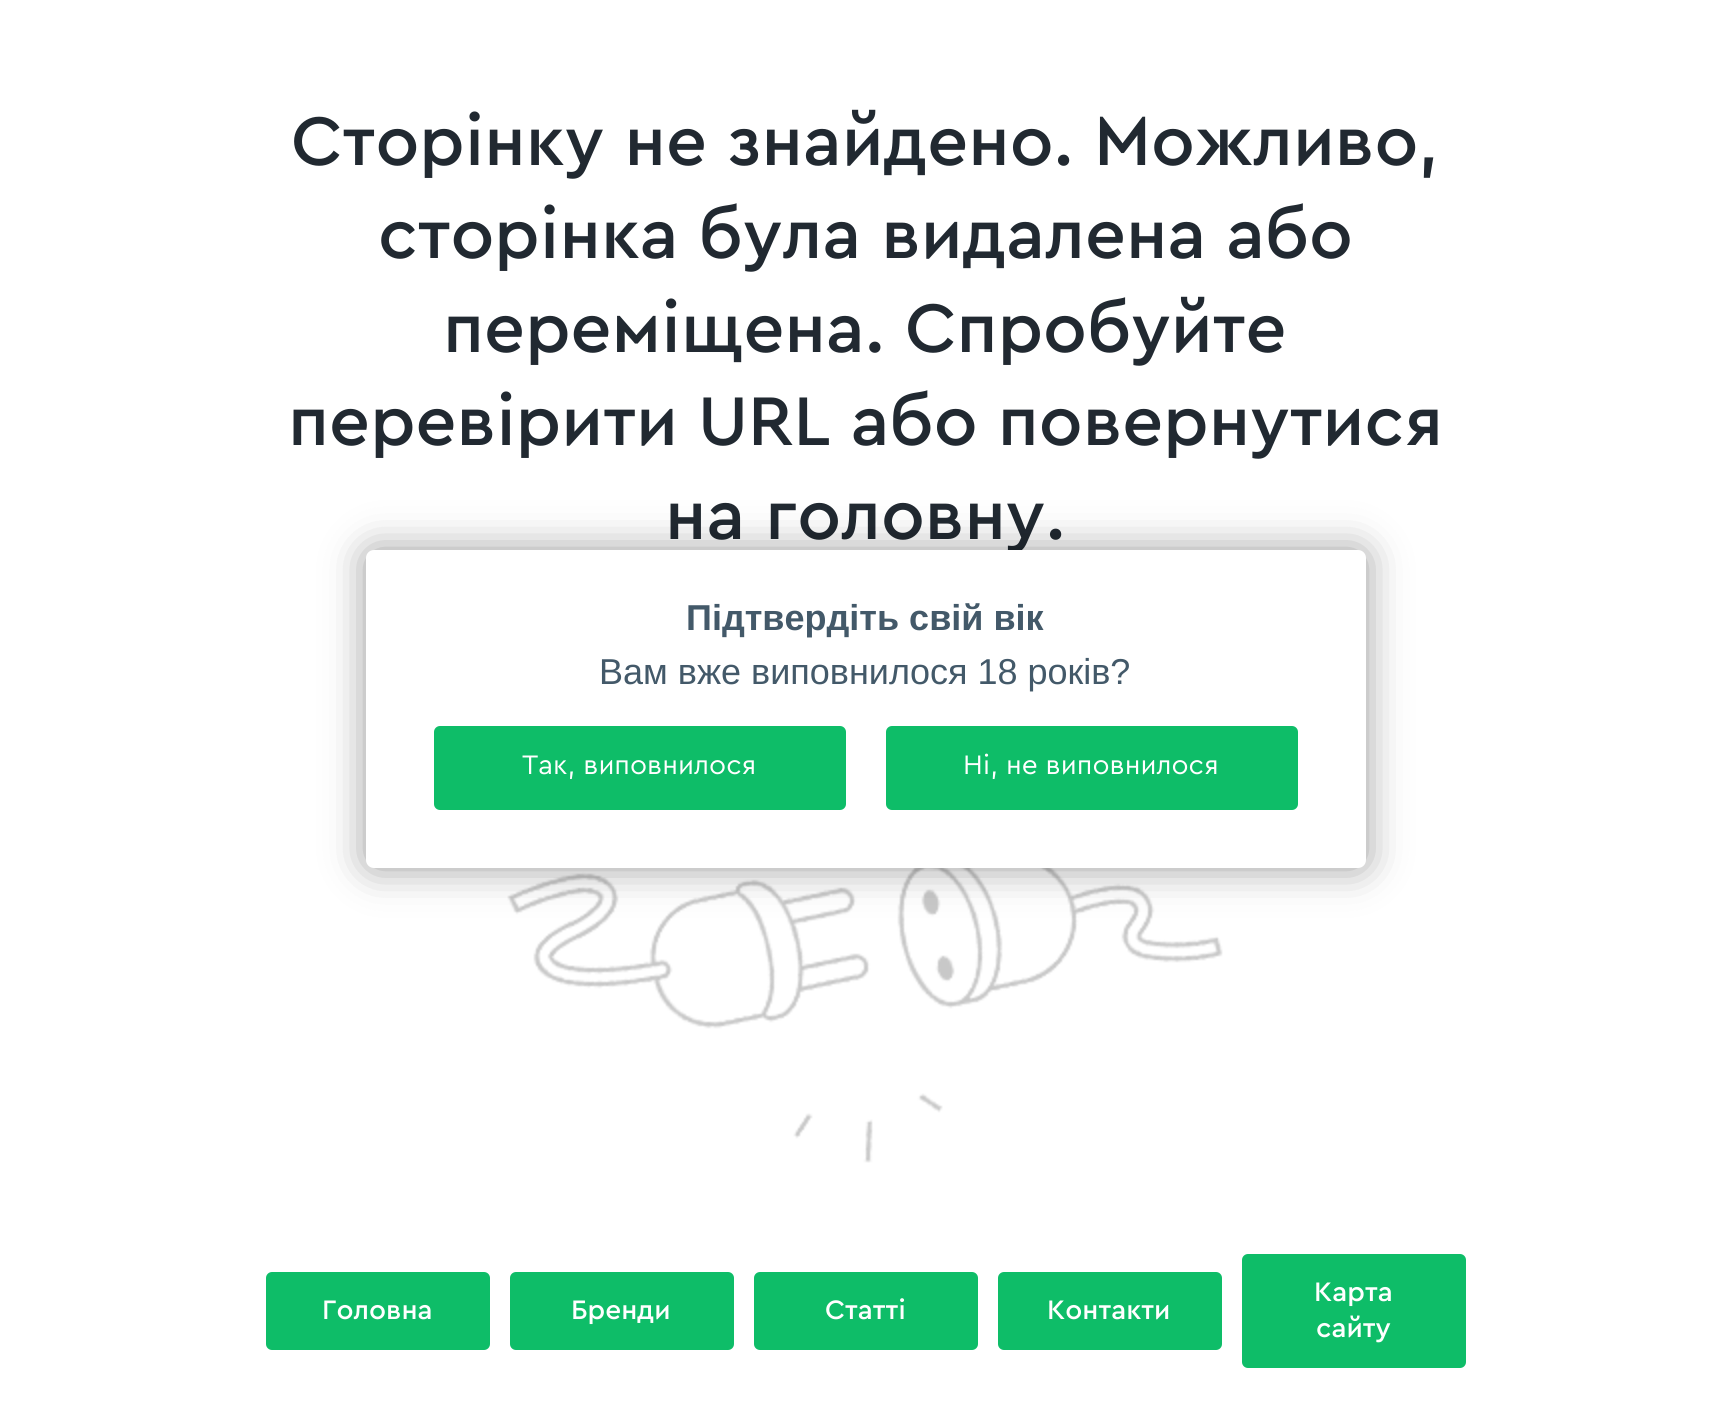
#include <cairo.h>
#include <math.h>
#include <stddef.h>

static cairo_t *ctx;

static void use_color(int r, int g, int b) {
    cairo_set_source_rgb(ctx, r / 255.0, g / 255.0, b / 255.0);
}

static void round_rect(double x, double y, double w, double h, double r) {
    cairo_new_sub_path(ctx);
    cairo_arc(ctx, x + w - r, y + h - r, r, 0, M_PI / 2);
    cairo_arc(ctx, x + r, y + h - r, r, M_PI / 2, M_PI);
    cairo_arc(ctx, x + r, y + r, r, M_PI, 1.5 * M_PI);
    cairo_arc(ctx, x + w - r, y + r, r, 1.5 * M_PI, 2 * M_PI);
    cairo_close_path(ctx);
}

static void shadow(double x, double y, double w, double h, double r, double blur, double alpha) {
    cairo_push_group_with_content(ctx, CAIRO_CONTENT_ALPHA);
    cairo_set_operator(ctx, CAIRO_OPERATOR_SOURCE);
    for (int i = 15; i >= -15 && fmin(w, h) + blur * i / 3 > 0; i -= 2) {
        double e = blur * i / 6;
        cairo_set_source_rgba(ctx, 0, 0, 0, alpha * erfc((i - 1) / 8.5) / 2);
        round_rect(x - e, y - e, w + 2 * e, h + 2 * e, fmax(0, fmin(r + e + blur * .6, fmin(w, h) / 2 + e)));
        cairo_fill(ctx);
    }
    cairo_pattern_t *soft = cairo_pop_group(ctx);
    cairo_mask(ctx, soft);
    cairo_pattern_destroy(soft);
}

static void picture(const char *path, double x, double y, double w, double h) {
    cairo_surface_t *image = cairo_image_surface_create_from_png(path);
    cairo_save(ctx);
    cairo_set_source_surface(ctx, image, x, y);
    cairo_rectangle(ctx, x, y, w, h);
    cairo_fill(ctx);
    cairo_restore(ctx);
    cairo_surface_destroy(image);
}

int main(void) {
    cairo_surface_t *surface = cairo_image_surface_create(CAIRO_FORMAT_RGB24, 1729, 1414);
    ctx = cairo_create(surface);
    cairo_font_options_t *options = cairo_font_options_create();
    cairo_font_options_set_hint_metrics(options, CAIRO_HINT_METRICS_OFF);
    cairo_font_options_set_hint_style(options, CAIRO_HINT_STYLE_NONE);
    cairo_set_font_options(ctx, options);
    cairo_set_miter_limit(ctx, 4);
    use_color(255, 255, 255);
    cairo_paint(ctx);
    cairo_select_font_face(ctx, "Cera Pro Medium", CAIRO_FONT_SLANT_NORMAL, CAIRO_FONT_WEIGHT_NORMAL);
    cairo_set_font_size(ctx, 72);
    use_color(33, 41, 49);
    cairo_move_to(ctx, 291, 165);
    cairo_show_text(ctx, "Сторінку не знайдено. Можливо,");
    cairo_move_to(ctx, 378, 258);
    cairo_show_text(ctx, "сторінка була видалена або");
    cairo_move_to(ctx, 443, 352);
    cairo_show_text(ctx, "переміщена. Спробуйте");
    cairo_move_to(ctx, 288, 445);
    cairo_show_text(ctx, "перевірити URL або повернутися");
    cairo_move_to(ctx, 665, 539);
    cairo_show_text(ctx, "на головну.");
    picture("img1.png", 507, 868, 716, 295);
    use_color(14, 189, 104);
    round_rect(266, 1272, 224, 78, 6);
    cairo_fill(ctx);
    cairo_set_font_size(ctx, 28);
    use_color(255, 255, 255);
    cairo_move_to(ctx, 322, 1319);
    cairo_show_text(ctx, "Головна");
    use_color(14, 189, 104);
    round_rect(510, 1272, 224, 78, 6);
    cairo_fill(ctx);
    use_color(255, 255, 255);
    cairo_move_to(ctx, 571, 1319);
    cairo_show_text(ctx, "Бренди");
    use_color(14, 189, 104);
    round_rect(754, 1272, 224, 78, 6);
    cairo_fill(ctx);
    use_color(255, 255, 255);
    cairo_move_to(ctx, 825, 1319);
    cairo_show_text(ctx, "Статті");
    use_color(14, 189, 104);
    round_rect(998, 1272, 224, 78, 6);
    cairo_fill(ctx);
    use_color(255, 255, 255);
    cairo_move_to(ctx, 1047, 1319);
    cairo_show_text(ctx, "Контакти");
    use_color(14, 189, 104);
    round_rect(1242, 1254, 224, 114, 6);
    cairo_fill(ctx);
    use_color(255, 255, 255);
    cairo_move_to(ctx, 1314, 1301);
    cairo_show_text(ctx, "Карта");
    cairo_move_to(ctx, 1316, 1337);
    cairo_show_text(ctx, "сайту");
    use_color(0, 0, 0);
    shadow(366, 550, 1000, 318, 8, 20, 0.4);
    use_color(255, 255, 255);
    round_rect(366, 550, 1000, 318, 8);
    cairo_fill(ctx);
    cairo_select_font_face(ctx, "Liberation Sans", CAIRO_FONT_SLANT_NORMAL, CAIRO_FONT_WEIGHT_BOLD);
    cairo_set_font_size(ctx, 36);
    use_color(67, 89, 105);
    cairo_move_to(ctx, 686, 630);
    cairo_show_text(ctx, "Підтвердіть свій вік");
    cairo_select_font_face(ctx, "Liberation Sans", CAIRO_FONT_SLANT_NORMAL, CAIRO_FONT_WEIGHT_NORMAL);
    cairo_move_to(ctx, 599, 684);
    cairo_show_text(ctx, "Вам вже виповнилося 18 років?");
    use_color(14, 189, 104);
    round_rect(435, 727, 410, 82, 5);
    cairo_fill_preserve(ctx);
    cairo_stroke(ctx);
    cairo_select_font_face(ctx, "Cera Pro", CAIRO_FONT_SLANT_NORMAL, CAIRO_FONT_WEIGHT_NORMAL);
    cairo_set_font_size(ctx, 28);
    use_color(255, 255, 255);
    cairo_move_to(ctx, 522, 774);
    cairo_show_text(ctx, "Так, виповнилося");
    use_color(14, 189, 104);
    round_rect(887, 727, 410, 82, 5);
    cairo_fill_preserve(ctx);
    cairo_stroke(ctx);
    use_color(255, 255, 255);
    cairo_move_to(ctx, 963, 774);
    cairo_show_text(ctx, "Ні, не виповнилося");
    cairo_surface_write_to_png(surface, "result.png");
    cairo_font_options_destroy(options);
    cairo_destroy(ctx);
    cairo_surface_destroy(surface);
    return 0;
}
